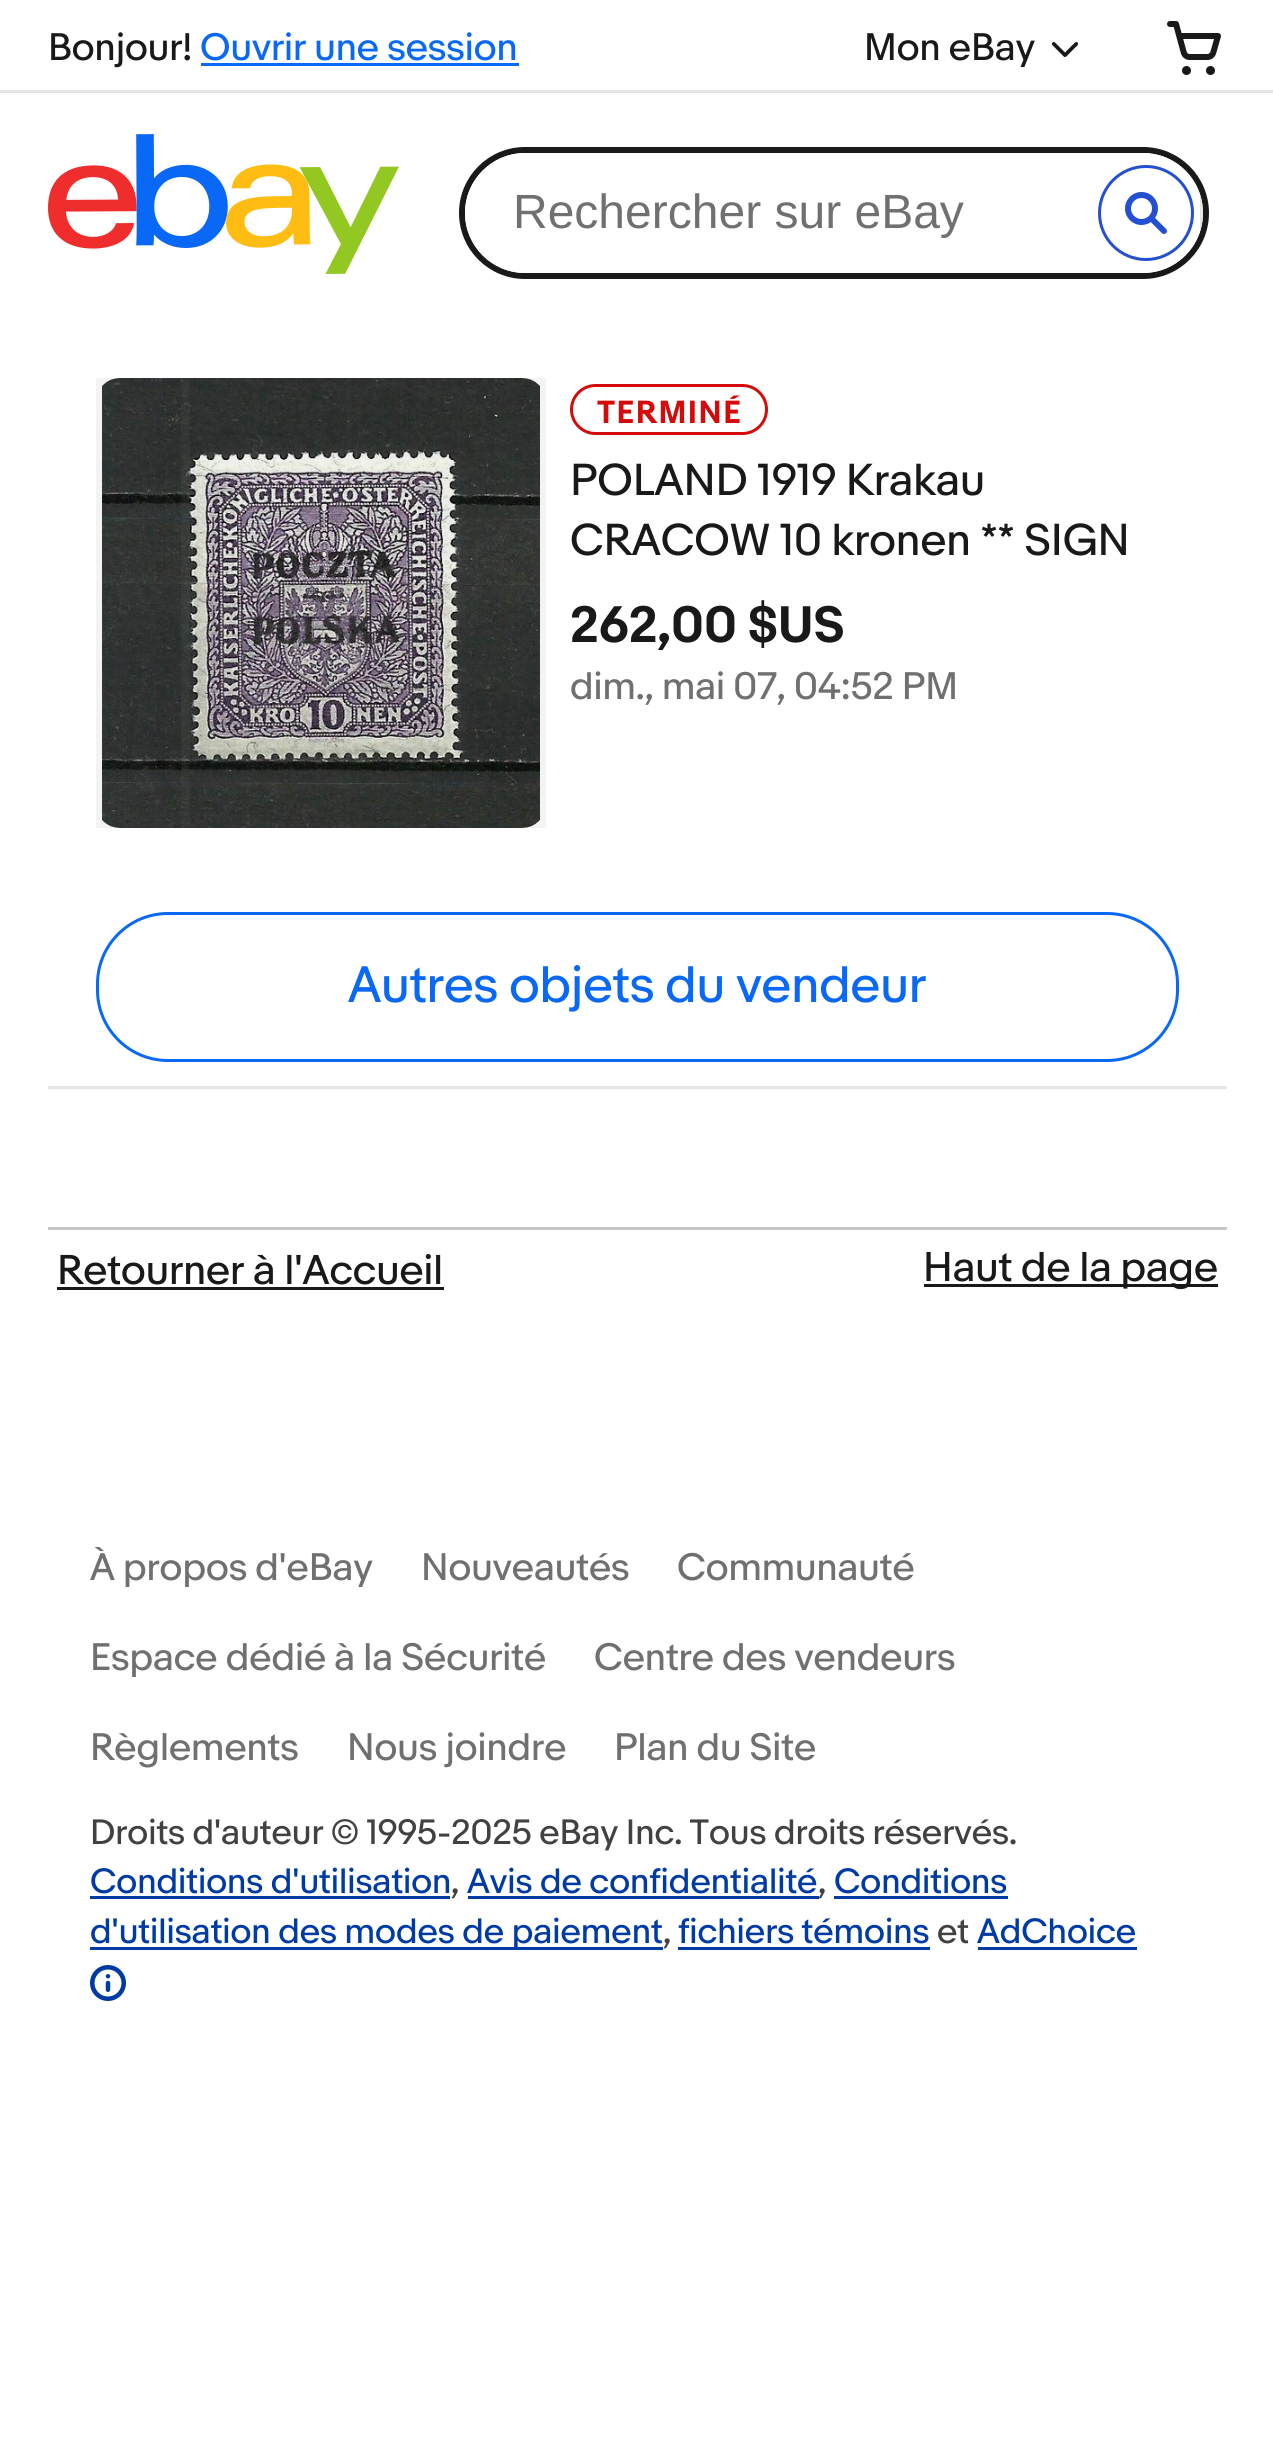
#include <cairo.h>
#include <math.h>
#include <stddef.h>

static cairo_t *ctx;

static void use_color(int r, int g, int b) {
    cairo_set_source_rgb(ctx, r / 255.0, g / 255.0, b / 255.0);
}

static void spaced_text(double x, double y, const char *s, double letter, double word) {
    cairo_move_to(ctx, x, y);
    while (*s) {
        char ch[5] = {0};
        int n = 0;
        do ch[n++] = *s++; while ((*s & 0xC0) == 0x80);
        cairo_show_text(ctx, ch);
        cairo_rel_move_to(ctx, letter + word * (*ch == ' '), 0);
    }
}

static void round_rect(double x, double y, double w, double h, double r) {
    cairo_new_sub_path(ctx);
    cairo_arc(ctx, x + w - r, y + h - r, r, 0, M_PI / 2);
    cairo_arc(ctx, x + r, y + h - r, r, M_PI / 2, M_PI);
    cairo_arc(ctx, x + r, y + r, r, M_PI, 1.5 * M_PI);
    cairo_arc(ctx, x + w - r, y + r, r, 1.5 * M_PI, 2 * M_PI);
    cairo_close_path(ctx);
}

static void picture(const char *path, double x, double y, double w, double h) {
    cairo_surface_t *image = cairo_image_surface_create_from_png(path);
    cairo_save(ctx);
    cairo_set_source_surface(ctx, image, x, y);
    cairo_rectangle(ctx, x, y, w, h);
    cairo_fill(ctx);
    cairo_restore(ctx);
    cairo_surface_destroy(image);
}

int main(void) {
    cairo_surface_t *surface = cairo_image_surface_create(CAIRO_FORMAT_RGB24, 1273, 2463);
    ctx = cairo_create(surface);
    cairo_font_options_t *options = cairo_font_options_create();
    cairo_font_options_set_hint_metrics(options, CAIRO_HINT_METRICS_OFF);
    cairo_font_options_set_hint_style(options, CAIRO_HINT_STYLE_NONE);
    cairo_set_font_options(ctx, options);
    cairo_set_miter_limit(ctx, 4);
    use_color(255, 255, 255);
    cairo_paint(ctx);
    cairo_select_font_face(ctx, "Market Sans", CAIRO_FONT_SLANT_NORMAL, CAIRO_FONT_WEIGHT_NORMAL);
    cairo_set_font_size(ctx, 36);
    use_color(25, 25, 25);
    cairo_move_to(ctx, 48, 60);
    cairo_show_text(ctx, "Bonjour!");
    use_color(9, 104, 246);
    cairo_move_to(ctx, 200, 60);
    cairo_show_text(ctx, "Ouvrir une session");
    cairo_rectangle(ctx, 201, 63, 318, 3);
    cairo_fill(ctx);
    use_color(25, 25, 25);
    cairo_move_to(ctx, 864, 60);
    cairo_show_text(ctx, "Mon eBay");
    picture("img1.png", 1051, 42, 28, 15);
    picture("img2.png", 1167, 21, 54, 54);
    picture("img3.png", 48, 134, 351, 140);
    round_rect(462, 150, 744, 126, 63);
    cairo_set_line_width(ctx, 6);
    cairo_stroke(ctx);
    cairo_save(ctx);
    round_rect(465, 153, 738, 120, 60);
    cairo_clip(ctx);
    use_color(229, 229, 229);
    cairo_rectangle(ctx, 1200, 194, 3, 38);
    cairo_fill(ctx);
    use_color(255, 255, 255);
    cairo_new_path(ctx);
    cairo_move_to(ctx, 525, 153);
    cairo_line_to(ctx, 1200, 153);
    cairo_line_to(ctx, 1200, 273);
    cairo_line_to(ctx, 525, 273);
    cairo_curve_to(ctx, 492, 273, 465, 246, 465, 213);
    cairo_curve_to(ctx, 465, 180, 492, 153, 525, 153);
    cairo_close_path(ctx);
    cairo_fill(ctx);
    cairo_restore(ctx);
    cairo_select_font_face(ctx, "Liberation Sans", CAIRO_FONT_SLANT_NORMAL, CAIRO_FONT_WEIGHT_NORMAL);
    cairo_set_font_size(ctx, 48);
    use_color(112, 112, 112);
    cairo_move_to(ctx, 513, 228);
    cairo_show_text(ctx, "Rechercher sur eBay");
    cairo_new_path(ctx);
    cairo_arc(ctx, 1146, 213, 46.5, 0, 2 * M_PI);
    use_color(37, 79, 210);
    cairo_set_line_width(ctx, 3);
    cairo_stroke(ctx);
    picture("img4.png", 1125, 192, 42, 42);
    use_color(229, 229, 229);
    cairo_rectangle(ctx, 48, 1086, 1179, 3);
    cairo_fill(ctx);
    picture("img5.png", 102, 378, 438, 450);
    cairo_set_source_rgba(ctx, 0, 0, 0, 0.05);
    cairo_rectangle(ctx, 96, 378, 450, 450);
    cairo_fill(ctx);
    round_rect(571.5, 385.5, 195, 48, 24);
    use_color(213, 11, 11);
    cairo_stroke(ctx);
    cairo_select_font_face(ctx, "Market Sans", CAIRO_FONT_SLANT_NORMAL, CAIRO_FONT_WEIGHT_BOLD);
    cairo_set_font_size(ctx, 30);
    spaced_text(597, 423, "TERMINÉ", 1.5, 0);
    cairo_select_font_face(ctx, "Market Sans", CAIRO_FONT_SLANT_NORMAL, CAIRO_FONT_WEIGHT_NORMAL);
    cairo_set_font_size(ctx, 42);
    use_color(25, 25, 25);
    cairo_move_to(ctx, 570, 495);
    cairo_show_text(ctx, "POLAND 1919 Krakau");
    cairo_move_to(ctx, 570, 555);
    cairo_show_text(ctx, "CRACOW 10 kronen ** SIGN");
    cairo_select_font_face(ctx, "Market Sans", CAIRO_FONT_SLANT_NORMAL, CAIRO_FONT_WEIGHT_BOLD);
    cairo_set_font_size(ctx, 48);
    cairo_move_to(ctx, 570, 642);
    cairo_show_text(ctx, "262,00 $US");
    cairo_select_font_face(ctx, "Market Sans", CAIRO_FONT_SLANT_NORMAL, CAIRO_FONT_WEIGHT_NORMAL);
    cairo_set_font_size(ctx, 36);
    use_color(112, 112, 112);
    cairo_move_to(ctx, 570, 699);
    cairo_show_text(ctx, "dim., mai 07, 04:52 PM");
    round_rect(97.5, 913.5, 1080, 147, 70.5);
    use_color(9, 104, 246);
    cairo_stroke(ctx);
    cairo_set_font_size(ctx, 48);
    cairo_move_to(ctx, 348, 1002);
    cairo_show_text(ctx, "Autres objets du vendeur");
    use_color(199, 199, 199);
    cairo_rectangle(ctx, 48, 1227, 1179, 3);
    cairo_fill(ctx);
    cairo_set_font_size(ctx, 39);
    use_color(25, 25, 25);
    cairo_move_to(ctx, 57, 1284);
    cairo_show_text(ctx, "Retourner à l'Accueil");
    cairo_rectangle(ctx, 57, 1287, 387, 3);
    cairo_fill(ctx);
    cairo_rectangle(ctx, 924, 1284, 294, 3);
    cairo_fill(ctx);
    cairo_move_to(ctx, 923, 1281);
    cairo_show_text(ctx, "Haut de la page");
    use_color(229, 229, 229);
    cairo_rectangle(ctx, 0, 90, 1273, 3);
    cairo_fill(ctx);
    cairo_set_font_size(ctx, 36);
    use_color(112, 112, 112);
    cairo_move_to(ctx, 90, 1580);
    cairo_show_text(ctx, "À propos d'eBay");
    cairo_move_to(ctx, 421, 1580);
    cairo_show_text(ctx, "Nouveautés");
    cairo_move_to(ctx, 677, 1580);
    cairo_show_text(ctx, "Communauté");
    cairo_move_to(ctx, 90, 1670);
    cairo_show_text(ctx, "Espace dédié à la Sécurité");
    cairo_move_to(ctx, 594, 1670);
    cairo_show_text(ctx, "Centre des vendeurs");
    cairo_move_to(ctx, 90, 1760);
    cairo_show_text(ctx, "Règlements");
    cairo_move_to(ctx, 347, 1760);
    cairo_show_text(ctx, "Nous joindre");
    cairo_move_to(ctx, 614, 1760);
    cairo_show_text(ctx, "Plan du Site");
    cairo_set_font_size(ctx, 33);
    use_color(65, 65, 63);
    cairo_move_to(ctx, 90, 1844);
    cairo_show_text(ctx, "Droits d'auteur © 1995-2025 eBay Inc. Tous droits réservés.");
    use_color(0, 58, 165);
    cairo_move_to(ctx, 90, 1893);
    cairo_show_text(ctx, "Conditions d'utilisation");
    cairo_rectangle(ctx, 90, 1896, 360, 3);
    cairo_fill(ctx);
    use_color(65, 65, 63);
    cairo_move_to(ctx, 451, 1893);
    cairo_show_text(ctx, ",");
    use_color(0, 58, 165);
    cairo_move_to(ctx, 467, 1893);
    cairo_show_text(ctx, "Avis de confidentialité");
    cairo_rectangle(ctx, 468, 1896, 351, 3);
    cairo_fill(ctx);
    use_color(65, 65, 63);
    cairo_move_to(ctx, 818, 1893);
    cairo_show_text(ctx, ",");
    use_color(0, 58, 165);
    cairo_move_to(ctx, 834, 1893);
    cairo_show_text(ctx, "Conditions");
    cairo_rectangle(ctx, 834, 1896, 174, 3);
    cairo_fill(ctx);
    cairo_rectangle(ctx, 90, 1947, 573, 3);
    cairo_fill(ctx);
    cairo_move_to(ctx, 90, 1943);
    cairo_show_text(ctx, "d'utilisation des modes de paiement");
    use_color(65, 65, 63);
    cairo_move_to(ctx, 663, 1943);
    cairo_show_text(ctx, ",");
    use_color(0, 58, 165);
    cairo_move_to(ctx, 678, 1943);
    cairo_show_text(ctx, "fichiers témoins");
    cairo_rectangle(ctx, 678, 1947, 252, 3);
    cairo_fill(ctx);
    use_color(65, 65, 63);
    cairo_move_to(ctx, 937, 1943);
    cairo_show_text(ctx, "et");
    use_color(0, 58, 165);
    cairo_move_to(ctx, 977, 1943);
    cairo_show_text(ctx, "AdChoice");
    cairo_rectangle(ctx, 978, 1947, 159, 3);
    cairo_fill(ctx);
    picture("img6.png", 90, 1965, 36, 36);
    cairo_surface_write_to_png(surface, "result.png");
    cairo_font_options_destroy(options);
    cairo_destroy(ctx);
    cairo_surface_destroy(surface);
    return 0;
}
